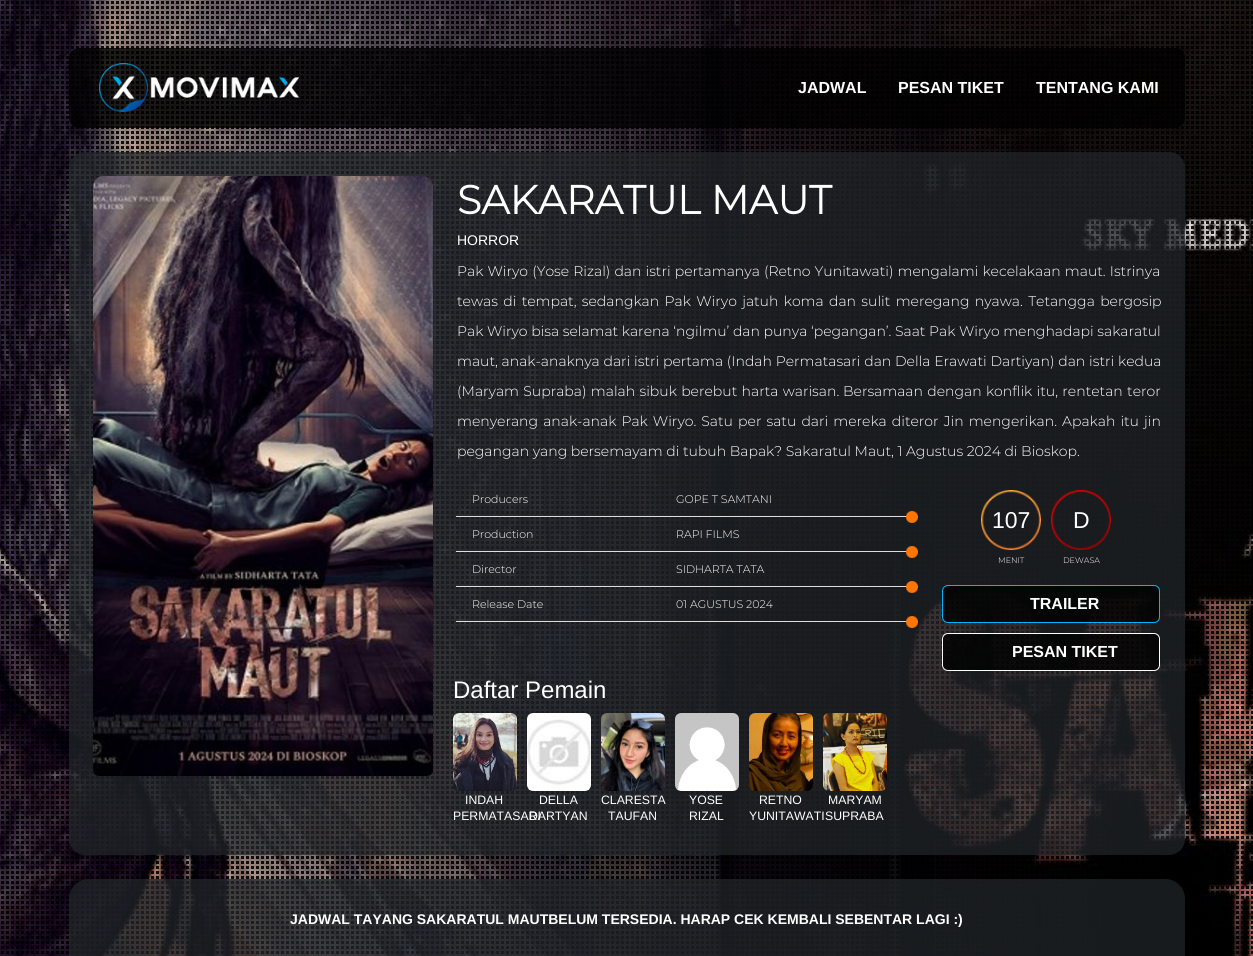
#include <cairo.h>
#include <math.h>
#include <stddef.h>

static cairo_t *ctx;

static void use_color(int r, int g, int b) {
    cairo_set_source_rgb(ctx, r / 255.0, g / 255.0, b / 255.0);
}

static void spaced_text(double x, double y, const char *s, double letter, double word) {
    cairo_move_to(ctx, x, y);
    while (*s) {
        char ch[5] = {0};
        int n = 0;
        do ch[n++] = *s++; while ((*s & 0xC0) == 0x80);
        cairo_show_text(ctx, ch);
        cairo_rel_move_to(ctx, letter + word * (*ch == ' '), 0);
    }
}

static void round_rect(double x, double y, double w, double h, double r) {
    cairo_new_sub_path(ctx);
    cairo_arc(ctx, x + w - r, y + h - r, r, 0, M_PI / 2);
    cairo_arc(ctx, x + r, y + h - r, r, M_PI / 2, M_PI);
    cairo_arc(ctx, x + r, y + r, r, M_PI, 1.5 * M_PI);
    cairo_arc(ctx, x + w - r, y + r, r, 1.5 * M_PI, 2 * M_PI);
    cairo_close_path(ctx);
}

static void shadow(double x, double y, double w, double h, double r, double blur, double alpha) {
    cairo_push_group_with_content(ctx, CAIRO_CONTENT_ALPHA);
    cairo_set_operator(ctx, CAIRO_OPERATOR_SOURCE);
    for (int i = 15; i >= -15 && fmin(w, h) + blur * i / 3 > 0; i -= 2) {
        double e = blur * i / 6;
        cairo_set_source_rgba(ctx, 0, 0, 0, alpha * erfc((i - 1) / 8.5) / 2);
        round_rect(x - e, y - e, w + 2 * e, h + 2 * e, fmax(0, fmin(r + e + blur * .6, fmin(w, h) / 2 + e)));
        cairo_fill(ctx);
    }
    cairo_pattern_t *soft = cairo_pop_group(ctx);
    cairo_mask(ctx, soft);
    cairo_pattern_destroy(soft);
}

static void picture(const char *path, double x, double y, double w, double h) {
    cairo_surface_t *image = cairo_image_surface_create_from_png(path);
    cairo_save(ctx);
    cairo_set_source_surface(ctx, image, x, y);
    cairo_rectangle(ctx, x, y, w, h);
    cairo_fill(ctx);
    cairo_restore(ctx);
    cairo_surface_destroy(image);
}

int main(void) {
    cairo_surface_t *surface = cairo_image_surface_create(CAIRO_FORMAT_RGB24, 1253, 956);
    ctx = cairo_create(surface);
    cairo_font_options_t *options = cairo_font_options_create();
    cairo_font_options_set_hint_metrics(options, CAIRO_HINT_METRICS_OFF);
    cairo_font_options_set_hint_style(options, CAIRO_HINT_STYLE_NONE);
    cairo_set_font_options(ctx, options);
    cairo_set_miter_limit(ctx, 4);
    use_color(255, 255, 255);
    cairo_paint(ctx);
    picture("img1.png", 0, 0, 1253, 956);
    cairo_set_source_rgba(ctx, 0, 0, 0, 0.8);
    round_rect(69, 48, 1116, 80, 10);
    cairo_fill(ctx);
    picture("img2.png", 99, 63, 200, 49);
    cairo_select_font_face(ctx, "Liberation Sans", CAIRO_FONT_SLANT_NORMAL, CAIRO_FONT_WEIGHT_BOLD);
    cairo_set_font_size(ctx, 16);
    use_color(255, 255, 255);
    cairo_move_to(ctx, 798, 93);
    cairo_show_text(ctx, "JADWAL");
    cairo_move_to(ctx, 898, 93);
    cairo_show_text(ctx, "PESAN TIKET");
    cairo_move_to(ctx, 1036, 93);
    cairo_show_text(ctx, "TENTANG KAMI");
    cairo_save(ctx);
    cairo_set_fill_rule(ctx, CAIRO_FILL_RULE_EVEN_ODD);
    cairo_new_path(ctx);
    cairo_move_to(ctx, 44, 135);
    cairo_line_to(ctx, 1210, 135);
    cairo_line_to(ctx, 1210, 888);
    cairo_line_to(ctx, 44, 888);
    cairo_close_path(ctx);
    cairo_move_to(ctx, 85, 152);
    cairo_line_to(ctx, 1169, 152);
    cairo_curve_to(ctx, 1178, 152, 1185, 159, 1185, 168);
    cairo_line_to(ctx, 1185, 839);
    cairo_curve_to(ctx, 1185, 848, 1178, 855, 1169, 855);
    cairo_line_to(ctx, 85, 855);
    cairo_curve_to(ctx, 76, 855, 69, 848, 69, 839);
    cairo_line_to(ctx, 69, 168);
    cairo_curve_to(ctx, 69, 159, 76, 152, 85, 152);
    cairo_close_path(ctx);
    cairo_clip(ctx);
    use_color(0, 0, 0);
    shadow(69, 160, 1116, 703, 16, 8, 0.15);
    cairo_restore(ctx);
    cairo_set_source_rgba(ctx, 0.129, 0.145, 0.161, 0.75);
    round_rect(69, 152, 1116, 703, 16);
    cairo_fill(ctx);
    picture("img3.png", 93, 176, 340, 600);
    cairo_select_font_face(ctx, "Montserrat", CAIRO_FONT_SLANT_NORMAL, CAIRO_FONT_WEIGHT_BOLD);
    cairo_set_font_size(ctx, 40);
    use_color(255, 255, 255);
    cairo_move_to(ctx, 457, 214);
    cairo_show_text(ctx, "SAKARATUL MAUT");
    cairo_select_font_face(ctx, "Liberation Sans", CAIRO_FONT_SLANT_NORMAL, CAIRO_FONT_WEIGHT_NORMAL);
    cairo_set_font_size(ctx, 14);
    cairo_move_to(ctx, 457, 245);
    cairo_show_text(ctx, "HORROR");
    cairo_select_font_face(ctx, "Montserrat Thin", CAIRO_FONT_SLANT_NORMAL, CAIRO_FONT_WEIGHT_NORMAL);
    spaced_text(457, 276, "Pak Wiryo (Yose Rizal) dan istri pertamanya (Retno Yunitawati) mengalami kecelakaan maut. Istrinya", 0, 0.5);
    spaced_text(457, 306, "tewas di tempat, sedangkan Pak Wiryo jatuh koma dan sulit meregang nyawa. Tetangga bergosip", 0, 1.75);
    cairo_move_to(ctx, 457, 336);
    cairo_show_text(ctx, "Pak Wiryo bisa selamat karena ‘ngilmu’ dan punya ‘pegangan’. Saat Pak Wiryo menghadapi sakaratul");
    spaced_text(457, 366, "maut, anak-anaknya dari istri pertama (Indah Permatasari dan Della Erawati Dartiyan) dan istri kedua", 0, 0.2);
    spaced_text(457, 396, "(Maryam Supraba) malah sibuk berebut harta warisan.", 0, 0.75);
    spaced_text(843, 396, "Bersamaan dengan konflik itu, rentetan teror", 0, 0.75);
    spaced_text(457, 426, "menyerang anak-anak Pak Wiryo. Satu per satu dari mereka diteror Jin mengerikan. Apakah itu jin", 0, 1.5);
    cairo_move_to(ctx, 457, 456);
    cairo_show_text(ctx, "pegangan yang bersemayam di tubuh Bapak? Sakaratul Maut, 1 Agustus 2024 di Bioskop.");
    cairo_set_font_size(ctx, 11);
    cairo_move_to(ctx, 472, 503);
    cairo_show_text(ctx, "Producers");
    use_color(221, 221, 221);
    cairo_rectangle(ctx, 456, 516, 462, 1);
    cairo_fill(ctx);
    use_color(255, 255, 255);
    cairo_move_to(ctx, 676, 503);
    cairo_show_text(ctx, "GOPE T SAMTANI");
    picture("img4.png", 906, 511, 12, 12);
    cairo_move_to(ctx, 472, 538);
    cairo_show_text(ctx, "Production");
    use_color(221, 221, 221);
    cairo_rectangle(ctx, 456, 551, 462, 1);
    cairo_fill(ctx);
    use_color(255, 255, 255);
    cairo_move_to(ctx, 676, 538);
    cairo_show_text(ctx, "RAPI FILMS");
    picture("img5.png", 906, 546, 12, 12);
    cairo_move_to(ctx, 472, 573);
    cairo_show_text(ctx, "Director");
    use_color(221, 221, 221);
    cairo_rectangle(ctx, 456, 586, 462, 1);
    cairo_fill(ctx);
    use_color(255, 255, 255);
    cairo_move_to(ctx, 676, 573);
    cairo_show_text(ctx, "SIDHARTA TATA");
    picture("img6.png", 906, 581, 12, 12);
    cairo_move_to(ctx, 472, 608);
    cairo_show_text(ctx, "Release Date");
    use_color(221, 221, 221);
    cairo_rectangle(ctx, 456, 621, 462, 1);
    cairo_fill(ctx);
    use_color(255, 255, 255);
    cairo_move_to(ctx, 676, 608);
    cairo_show_text(ctx, "01 AGUSTUS 2024");
    picture("img7.png", 906, 616, 12, 12);
    picture("img8.png", 981, 490, 60, 60);
    cairo_select_font_face(ctx, "Liberation Sans", CAIRO_FONT_SLANT_NORMAL, CAIRO_FONT_WEIGHT_NORMAL);
    cairo_set_font_size(ctx, 23);
    cairo_move_to(ctx, 992, 528);
    cairo_show_text(ctx, "107");
    cairo_select_font_face(ctx, "Montserrat Thin", CAIRO_FONT_SLANT_NORMAL, CAIRO_FONT_WEIGHT_NORMAL);
    cairo_set_font_size(ctx, 8);
    cairo_move_to(ctx, 998, 563);
    cairo_show_text(ctx, "MENIT");
    picture("img9.png", 1051, 490, 60, 60);
    cairo_select_font_face(ctx, "Liberation Sans", CAIRO_FONT_SLANT_NORMAL, CAIRO_FONT_WEIGHT_NORMAL);
    cairo_set_font_size(ctx, 23);
    cairo_move_to(ctx, 1073, 528);
    cairo_show_text(ctx, "D");
    cairo_select_font_face(ctx, "Montserrat Thin", CAIRO_FONT_SLANT_NORMAL, CAIRO_FONT_WEIGHT_NORMAL);
    cairo_set_font_size(ctx, 8);
    cairo_move_to(ctx, 1063, 563);
    cairo_show_text(ctx, "DEWASA");
    cairo_set_source_rgba(ctx, 0, 0, 0, 0.8);
    round_rect(942.5, 585.5, 217, 37, 5.5);
    cairo_fill_preserve(ctx);
    use_color(0, 183, 255);
    cairo_set_line_width(ctx, 1);
    cairo_stroke(ctx);
    cairo_select_font_face(ctx, "Liberation Sans", CAIRO_FONT_SLANT_NORMAL, CAIRO_FONT_WEIGHT_BOLD);
    cairo_set_font_size(ctx, 16);
    use_color(255, 255, 255);
    cairo_move_to(ctx, 1030, 609);
    cairo_show_text(ctx, "TRAILER");
    cairo_set_source_rgba(ctx, 0, 0, 0, 0.8);
    round_rect(942.5, 633.5, 217, 37, 5.5);
    cairo_fill_preserve(ctx);
    use_color(255, 255, 255);
    cairo_stroke(ctx);
    cairo_move_to(ctx, 1012, 657);
    cairo_show_text(ctx, "PESAN TIKET");
    cairo_select_font_face(ctx, "Liberation Sans", CAIRO_FONT_SLANT_NORMAL, CAIRO_FONT_WEIGHT_NORMAL);
    cairo_set_font_size(ctx, 24);
    cairo_move_to(ctx, 453, 698);
    cairo_show_text(ctx, "Daftar Pemain");
    picture("img10.png", 453, 713, 64, 78);
    cairo_set_font_size(ctx, 12.25);
    cairo_move_to(ctx, 465, 804);
    cairo_show_text(ctx, "INDAH");
    cairo_move_to(ctx, 453, 820);
    cairo_show_text(ctx, "PERMATASARI");
    picture("img11.png", 527, 713, 64, 78);
    cairo_move_to(ctx, 539, 804);
    cairo_show_text(ctx, "DELLA");
    cairo_move_to(ctx, 529, 820);
    cairo_show_text(ctx, "DARTYAN");
    picture("img12.png", 601, 713, 64, 78);
    cairo_move_to(ctx, 601, 804);
    cairo_show_text(ctx, "CLARESTA");
    cairo_move_to(ctx, 608, 820);
    cairo_show_text(ctx, "TAUFAN");
    picture("img13.png", 675, 713, 64, 78);
    cairo_move_to(ctx, 689, 804);
    cairo_show_text(ctx, "YOSE");
    cairo_move_to(ctx, 689, 820);
    cairo_show_text(ctx, "RIZAL");
    picture("img14.png", 749, 713, 64, 78);
    cairo_move_to(ctx, 759, 804);
    cairo_show_text(ctx, "RETNO");
    cairo_move_to(ctx, 749, 820);
    cairo_show_text(ctx, "YUNITAWATI");
    picture("img15.png", 823, 713, 64, 78);
    cairo_move_to(ctx, 828, 804);
    cairo_show_text(ctx, "MARYAM");
    cairo_move_to(ctx, 825, 820);
    cairo_show_text(ctx, "SUPRABA");
    cairo_set_source_rgba(ctx, 0.129, 0.145, 0.161, 0.75);
    round_rect(69, 879, 1116, 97, 20);
    cairo_fill(ctx);
    cairo_select_font_face(ctx, "Liberation Sans", CAIRO_FONT_SLANT_NORMAL, CAIRO_FONT_WEIGHT_BOLD);
    cairo_set_font_size(ctx, 14);
    use_color(255, 255, 255);
    cairo_move_to(ctx, 290, 924);
    cairo_show_text(ctx, "JADWAL TAYANG SAKARATUL MAUTBELUM TERSEDIA. HARAP CEK KEMBALI SEBENTAR LAGI :)");
    cairo_surface_write_to_png(surface, "result.png");
    cairo_font_options_destroy(options);
    cairo_destroy(ctx);
    cairo_surface_destroy(surface);
    return 0;
}
